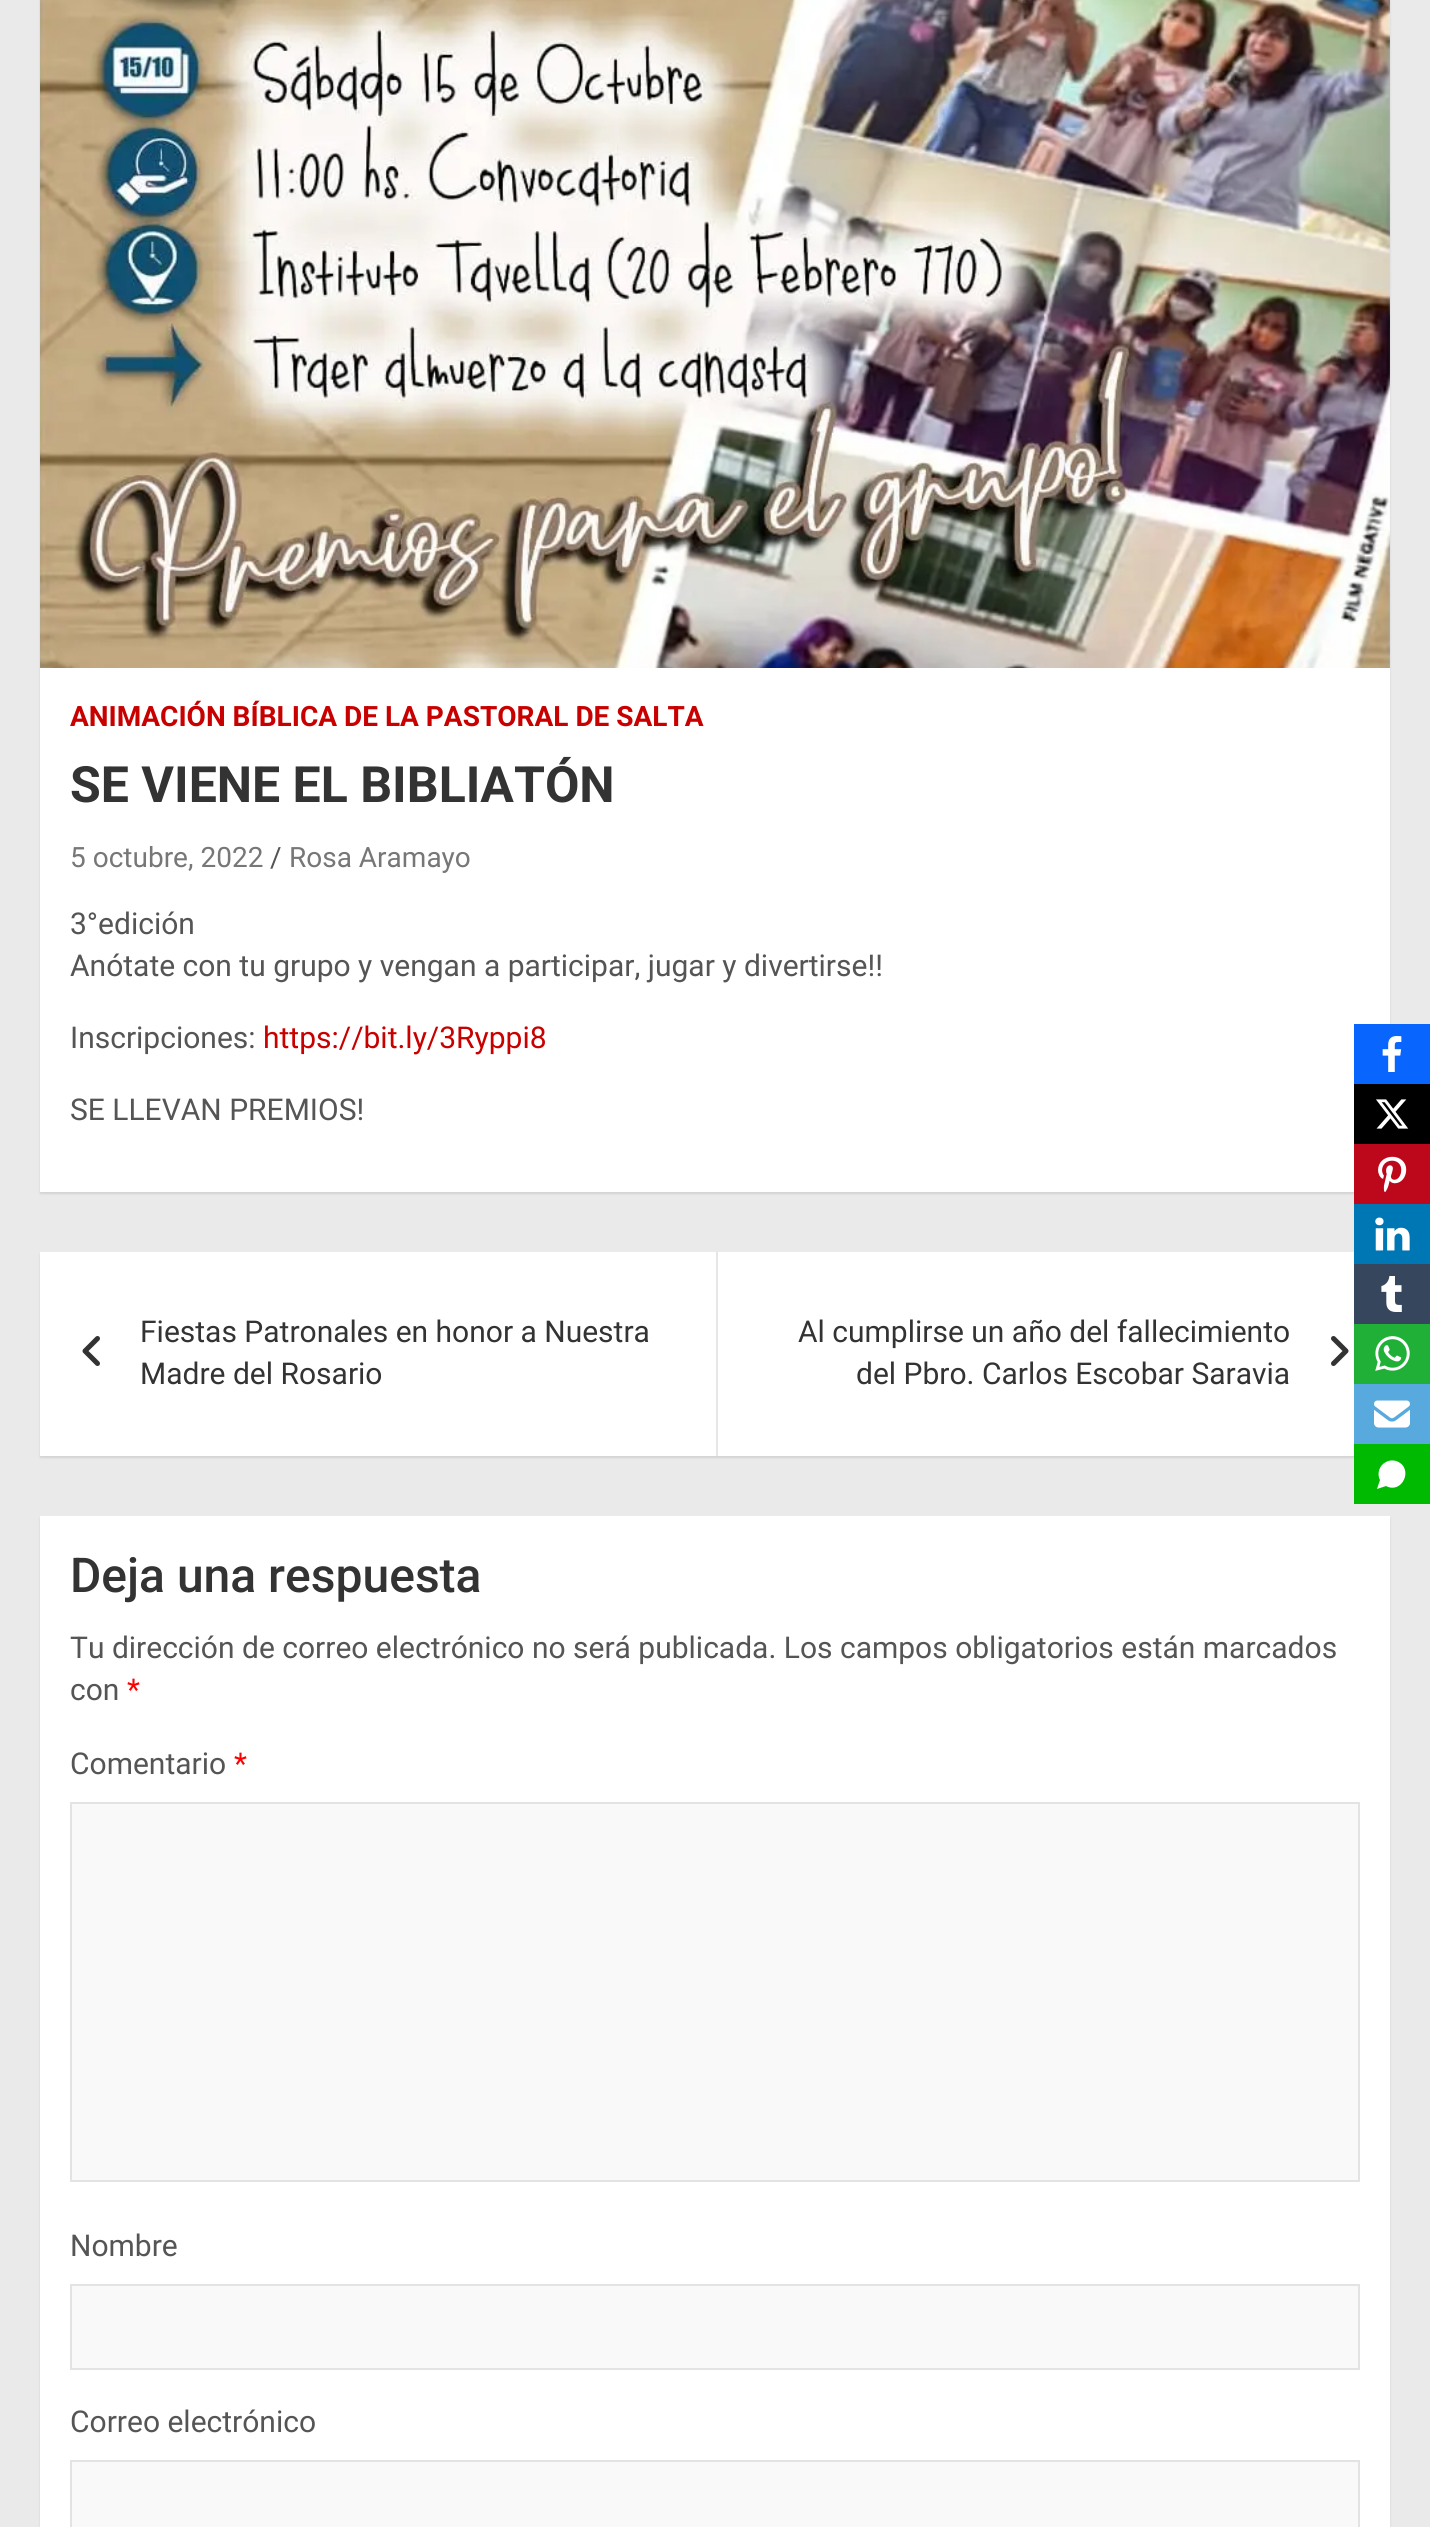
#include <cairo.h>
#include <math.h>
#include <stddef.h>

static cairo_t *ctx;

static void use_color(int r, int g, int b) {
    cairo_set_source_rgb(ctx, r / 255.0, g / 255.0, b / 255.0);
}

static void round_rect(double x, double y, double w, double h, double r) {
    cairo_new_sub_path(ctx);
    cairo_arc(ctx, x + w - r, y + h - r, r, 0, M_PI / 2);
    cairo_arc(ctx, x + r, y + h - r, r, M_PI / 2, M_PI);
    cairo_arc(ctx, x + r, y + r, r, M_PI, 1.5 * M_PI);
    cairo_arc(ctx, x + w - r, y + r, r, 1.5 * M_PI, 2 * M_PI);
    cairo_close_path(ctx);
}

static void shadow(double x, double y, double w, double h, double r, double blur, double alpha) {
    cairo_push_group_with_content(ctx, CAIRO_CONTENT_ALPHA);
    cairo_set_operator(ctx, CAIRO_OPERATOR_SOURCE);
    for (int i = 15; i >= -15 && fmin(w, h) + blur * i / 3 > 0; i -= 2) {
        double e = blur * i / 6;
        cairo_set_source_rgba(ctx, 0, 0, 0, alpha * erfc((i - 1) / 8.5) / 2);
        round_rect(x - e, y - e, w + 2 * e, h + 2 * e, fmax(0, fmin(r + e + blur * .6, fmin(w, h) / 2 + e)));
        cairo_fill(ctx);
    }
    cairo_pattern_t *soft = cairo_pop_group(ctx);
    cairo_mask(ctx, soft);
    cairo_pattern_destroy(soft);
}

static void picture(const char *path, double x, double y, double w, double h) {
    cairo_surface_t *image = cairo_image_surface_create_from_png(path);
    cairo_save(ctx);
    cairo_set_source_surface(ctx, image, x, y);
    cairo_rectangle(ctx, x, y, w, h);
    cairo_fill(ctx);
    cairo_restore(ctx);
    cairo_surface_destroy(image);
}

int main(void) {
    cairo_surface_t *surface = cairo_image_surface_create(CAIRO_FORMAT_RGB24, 1430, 2527);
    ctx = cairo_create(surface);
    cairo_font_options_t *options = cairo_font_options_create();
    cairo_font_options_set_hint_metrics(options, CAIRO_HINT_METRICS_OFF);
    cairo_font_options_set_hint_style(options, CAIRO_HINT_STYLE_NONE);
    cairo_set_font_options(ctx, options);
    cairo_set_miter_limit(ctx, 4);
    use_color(234, 234, 234);
    cairo_paint(ctx);
    use_color(0, 0, 0);
    shadow(40, -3, 1350, 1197, 0, 1, 0.1);
    use_color(255, 255, 255);
    cairo_rectangle(ctx, 40, 668, 1350, 524);
    cairo_fill(ctx);
    picture("img1.png", 40, 0, 1350, 668);
    cairo_select_font_face(ctx, "Roboto", CAIRO_FONT_SLANT_NORMAL, CAIRO_FONT_WEIGHT_BOLD);
    cairo_set_font_size(ctx, 28);
    use_color(200, 0, 0);
    cairo_move_to(ctx, 70, 726);
    cairo_show_text(ctx, "ANIMACIÓN BÍBLICA DE LA PASTORAL DE SALTA");
    cairo_set_font_size(ctx, 50);
    use_color(51, 51, 51);
    cairo_move_to(ctx, 70, 802);
    cairo_show_text(ctx, "SE VIENE EL BIBLIATÓN");
    cairo_select_font_face(ctx, "Roboto", CAIRO_FONT_SLANT_NORMAL, CAIRO_FONT_WEIGHT_NORMAL);
    cairo_set_font_size(ctx, 28);
    use_color(119, 119, 119);
    cairo_move_to(ctx, 70, 867);
    cairo_show_text(ctx, "5 octubre, 2022");
    use_color(85, 85, 85);
    cairo_move_to(ctx, 270, 867);
    cairo_show_text(ctx, "/");
    use_color(119, 119, 119);
    cairo_move_to(ctx, 289, 867);
    cairo_show_text(ctx, "Rosa Aramayo");
    cairo_set_font_size(ctx, 30);
    use_color(85, 85, 85);
    cairo_move_to(ctx, 70, 934);
    cairo_show_text(ctx, "3°edición");
    cairo_move_to(ctx, 70, 976);
    cairo_show_text(ctx, "Anótate con tu grupo y vengan a participar, jugar y divertirse!!");
    cairo_move_to(ctx, 70, 1048);
    cairo_show_text(ctx, "Inscripciones:");
    use_color(200, 0, 0);
    cairo_move_to(ctx, 263, 1048);
    cairo_show_text(ctx, "https://bit.ly/3Ryppi8");
    use_color(85, 85, 85);
    cairo_move_to(ctx, 70, 1120);
    cairo_show_text(ctx, "SE LLEVAN PREMIOS!");
    use_color(0, 0, 0);
    shadow(40, 1254, 1350, 204, 0, 1, 0.1);
    use_color(255, 255, 255);
    cairo_rectangle(ctx, 40, 1252, 1314, 204);
    cairo_fill(ctx);
    use_color(51, 51, 51);
    cairo_move_to(ctx, 140, 1342);
    cairo_show_text(ctx, "Fiestas Patronales en honor a Nuestra");
    picture("img2.png", 82, 1336, 18, 30);
    cairo_move_to(ctx, 140, 1384);
    cairo_show_text(ctx, "Madre del Rosario");
    use_color(230, 230, 230);
    cairo_rectangle(ctx, 716, 1252, 2, 204);
    cairo_fill(ctx);
    use_color(51, 51, 51);
    cairo_move_to(ctx, 798, 1342);
    cairo_show_text(ctx, "Al cumplirse un año del fallecimiento");
    picture("img3.png", 1331, 1336, 18, 30);
    cairo_move_to(ctx, 856, 1384);
    cairo_show_text(ctx, "del Pbro. Carlos Escobar Saravia");
    use_color(0, 0, 0);
    shadow(40, 1518, 1350, 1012, 0, 1, 0.1);
    use_color(255, 255, 255);
    cairo_rectangle(ctx, 40, 1516, 1350, 1011);
    cairo_fill(ctx);
    cairo_select_font_face(ctx, "Roboto Medium", CAIRO_FONT_SLANT_NORMAL, CAIRO_FONT_WEIGHT_NORMAL);
    cairo_set_font_size(ctx, 48);
    use_color(51, 51, 51);
    cairo_move_to(ctx, 70, 1592);
    cairo_show_text(ctx, "Deja una respuesta");
    cairo_select_font_face(ctx, "Roboto", CAIRO_FONT_SLANT_NORMAL, CAIRO_FONT_WEIGHT_NORMAL);
    cairo_set_font_size(ctx, 30);
    use_color(85, 85, 85);
    cairo_move_to(ctx, 70, 1658);
    cairo_show_text(ctx, "Tu dirección de correo electrónico no será publicada. Los campos obligatorios están marcados");
    cairo_move_to(ctx, 70, 1700);
    cairo_show_text(ctx, "con");
    use_color(255, 0, 0);
    cairo_move_to(ctx, 127, 1700);
    cairo_show_text(ctx, "*");
    use_color(85, 85, 85);
    cairo_move_to(ctx, 70, 1774);
    cairo_show_text(ctx, "Comentario");
    use_color(255, 0, 0);
    cairo_move_to(ctx, 234, 1774);
    cairo_show_text(ctx, "*");
    use_color(249, 249, 249);
    cairo_rectangle(ctx, 71, 1803, 1288, 378);
    cairo_fill_preserve(ctx);
    use_color(227, 227, 227);
    cairo_stroke(ctx);
    use_color(85, 85, 85);
    cairo_move_to(ctx, 70, 2256);
    cairo_show_text(ctx, "Nombre");
    use_color(249, 249, 249);
    cairo_rectangle(ctx, 71, 2285, 1288, 84);
    cairo_fill_preserve(ctx);
    use_color(227, 227, 227);
    cairo_stroke(ctx);
    use_color(85, 85, 85);
    cairo_move_to(ctx, 70, 2432);
    cairo_show_text(ctx, "Correo electrónico");
    use_color(249, 249, 249);
    cairo_rectangle(ctx, 71, 2461, 1288, 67);
    cairo_fill_preserve(ctx);
    use_color(227, 227, 227);
    cairo_stroke(ctx);
    use_color(8, 102, 255);
    cairo_rectangle(ctx, 1354, 1024, 76, 60);
    cairo_fill(ctx);
    picture("img4.png", 1382, 1036, 20, 36);
    use_color(0, 0, 0);
    cairo_rectangle(ctx, 1354, 1084, 76, 60);
    cairo_fill(ctx);
    picture("img5.png", 1376, 1099, 33, 30);
    use_color(189, 8, 28);
    cairo_rectangle(ctx, 1354, 1144, 76, 60);
    cairo_fill(ctx);
    picture("img6.png", 1378, 1156, 29, 36);
    use_color(0, 119, 181);
    cairo_rectangle(ctx, 1354, 1204, 76, 60);
    cairo_fill(ctx);
    picture("img7.png", 1375, 1217, 35, 34);
    use_color(54, 70, 93);
    cairo_rectangle(ctx, 1354, 1264, 76, 60);
    cairo_fill(ctx);
    picture("img8.png", 1381, 1276, 21, 36);
    use_color(32, 176, 56);
    cairo_rectangle(ctx, 1354, 1324, 76, 60);
    cairo_fill(ctx);
    picture("img9.png", 1375, 1336, 35, 35);
    use_color(88, 169, 222);
    cairo_rectangle(ctx, 1354, 1384, 76, 60);
    cairo_fill(ctx);
    picture("img10.png", 1374, 1400, 36, 28);
    use_color(0, 185, 1);
    cairo_rectangle(ctx, 1354, 1444, 76, 60);
    cairo_fill(ctx);
    use_color(255, 255, 255);
    cairo_new_path(ctx);
    cairo_move_to(ctx, 1386, 1486);
    cairo_curve_to(ctx, 1402, 1494.5, 1414, 1469, 1397.5, 1461.5);
    cairo_curve_to(ctx, 1394, 1460, 1389.5, 1460, 1386, 1462);
    cairo_curve_to(ctx, 1379.5, 1465, 1376.5, 1473.5, 1380, 1480);
    cairo_line_to(ctx, 1377, 1489);
    cairo_close_path(ctx);
    cairo_fill(ctx);
    cairo_surface_write_to_png(surface, "result.png");
    cairo_font_options_destroy(options);
    cairo_destroy(ctx);
    cairo_surface_destroy(surface);
    return 0;
}
